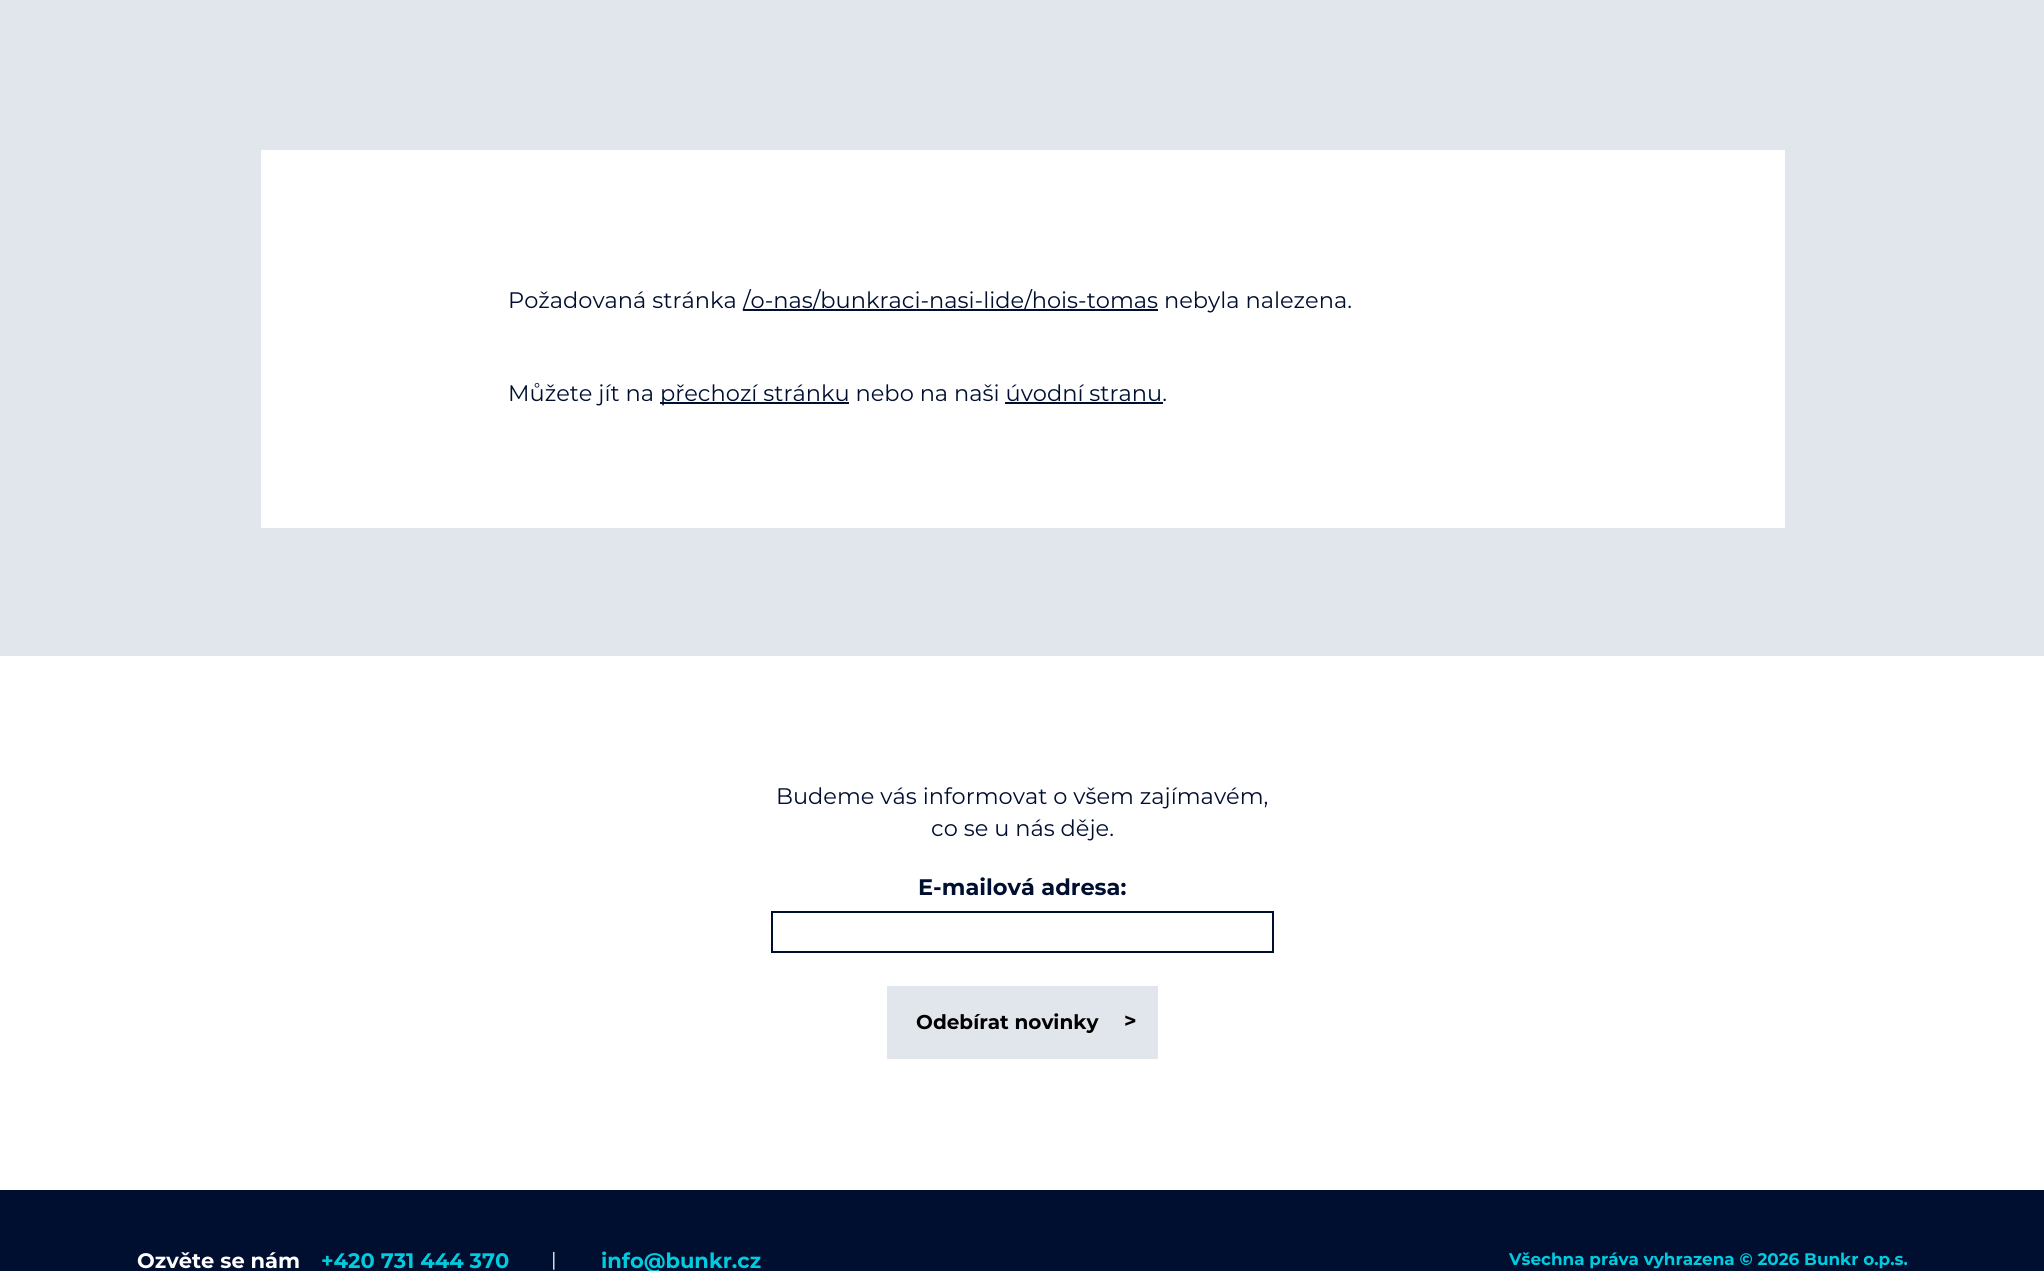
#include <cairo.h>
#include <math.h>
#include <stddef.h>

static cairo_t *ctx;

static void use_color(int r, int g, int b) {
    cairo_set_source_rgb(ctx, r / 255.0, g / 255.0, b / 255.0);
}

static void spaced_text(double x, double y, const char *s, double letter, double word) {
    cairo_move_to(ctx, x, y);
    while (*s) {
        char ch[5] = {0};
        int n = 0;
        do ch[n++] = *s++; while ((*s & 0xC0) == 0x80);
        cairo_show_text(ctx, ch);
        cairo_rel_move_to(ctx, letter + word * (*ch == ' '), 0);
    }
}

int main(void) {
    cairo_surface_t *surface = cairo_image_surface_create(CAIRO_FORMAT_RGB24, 2044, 1271);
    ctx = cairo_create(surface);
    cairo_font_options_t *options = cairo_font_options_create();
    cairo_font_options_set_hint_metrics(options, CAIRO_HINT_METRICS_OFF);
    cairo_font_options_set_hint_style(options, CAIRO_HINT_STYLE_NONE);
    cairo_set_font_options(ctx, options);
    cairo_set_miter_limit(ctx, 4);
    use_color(225, 229, 236);
    cairo_paint(ctx);
    use_color(255, 255, 255);
    cairo_rectangle(ctx, 261, 150, 1524, 378);
    cairo_fill(ctx);
    cairo_select_font_face(ctx, "Montserrat", CAIRO_FONT_SLANT_NORMAL, CAIRO_FONT_WEIGHT_NORMAL);
    cairo_set_font_size(ctx, 22.5);
    use_color(0, 14, 48);
    cairo_move_to(ctx, 508, 308);
    cairo_show_text(ctx, "Požadovaná stránka");
    cairo_rectangle(ctx, 743, 309, 415, 2);
    cairo_fill(ctx);
    cairo_move_to(ctx, 743, 308);
    cairo_show_text(ctx, "/o-nas/bunkraci-nasi-lide/hois-tomas nebyla nalezena.");
    cairo_move_to(ctx, 508, 401);
    cairo_show_text(ctx, "Můžete jít na");
    cairo_rectangle(ctx, 660, 402, 189, 2);
    cairo_fill(ctx);
    cairo_move_to(ctx, 660, 401);
    cairo_show_text(ctx, "přechozí stránku nebo na naši úvodní stranu.");
    cairo_rectangle(ctx, 1005, 402, 158, 2);
    cairo_fill(ctx);
    use_color(255, 255, 255);
    cairo_rectangle(ctx, 0, 656, 2044, 534);
    cairo_fill(ctx);
    use_color(0, 14, 48);
    cairo_move_to(ctx, 776, 804);
    cairo_show_text(ctx, "Budeme vás informovat o všem zajímavém,");
    cairo_move_to(ctx, 931, 836);
    cairo_show_text(ctx, "co se u nás děje.");
    cairo_select_font_face(ctx, "Montserrat", CAIRO_FONT_SLANT_NORMAL, CAIRO_FONT_WEIGHT_BOLD);
    cairo_move_to(ctx, 918, 895);
    cairo_show_text(ctx, "E-mailová adresa:");
    cairo_rectangle(ctx, 772, 912, 501, 40);
    cairo_stroke(ctx);
    use_color(225, 229, 236);
    cairo_rectangle(ctx, 887, 986, 271, 73);
    cairo_fill(ctx);
    cairo_set_font_size(ctx, 20);
    use_color(0, 0, 0);
    cairo_move_to(ctx, 916, 1029);
    cairo_show_text(ctx, "Odebírat novinky");
    cairo_set_font_size(ctx, 21);
    spaced_text(1124, 1028, ">", -5, 0);
    use_color(0, 14, 48);
    cairo_rectangle(ctx, 0, 1190, 2044, 81);
    cairo_fill(ctx);
    use_color(255, 255, 255);
    cairo_move_to(ctx, 137, 1268);
    cairo_show_text(ctx, "Ozvěte se nám");
    use_color(0, 203, 223);
    cairo_move_to(ctx, 321, 1268);
    cairo_show_text(ctx, "+420 731 444 370");
    cairo_select_font_face(ctx, "Montserrat", CAIRO_FONT_SLANT_NORMAL, CAIRO_FONT_WEIGHT_NORMAL);
    cairo_set_font_size(ctx, 19);
    use_color(255, 255, 255);
    spaced_text(551, 1266, "|", 1, 0);
    cairo_select_font_face(ctx, "Montserrat", CAIRO_FONT_SLANT_NORMAL, CAIRO_FONT_WEIGHT_BOLD);
    cairo_set_font_size(ctx, 21);
    use_color(0, 203, 223);
    cairo_move_to(ctx, 601, 1268);
    cairo_show_text(ctx, "info@bunkr.cz");
    cairo_set_font_size(ctx, 16.8);
    cairo_move_to(ctx, 1509, 1265);
    cairo_show_text(ctx, "Všechna práva vyhrazena © 2026 Bunkr o.p.s.");
    cairo_surface_write_to_png(surface, "result.png");
    cairo_font_options_destroy(options);
    cairo_destroy(ctx);
    cairo_surface_destroy(surface);
    return 0;
}
